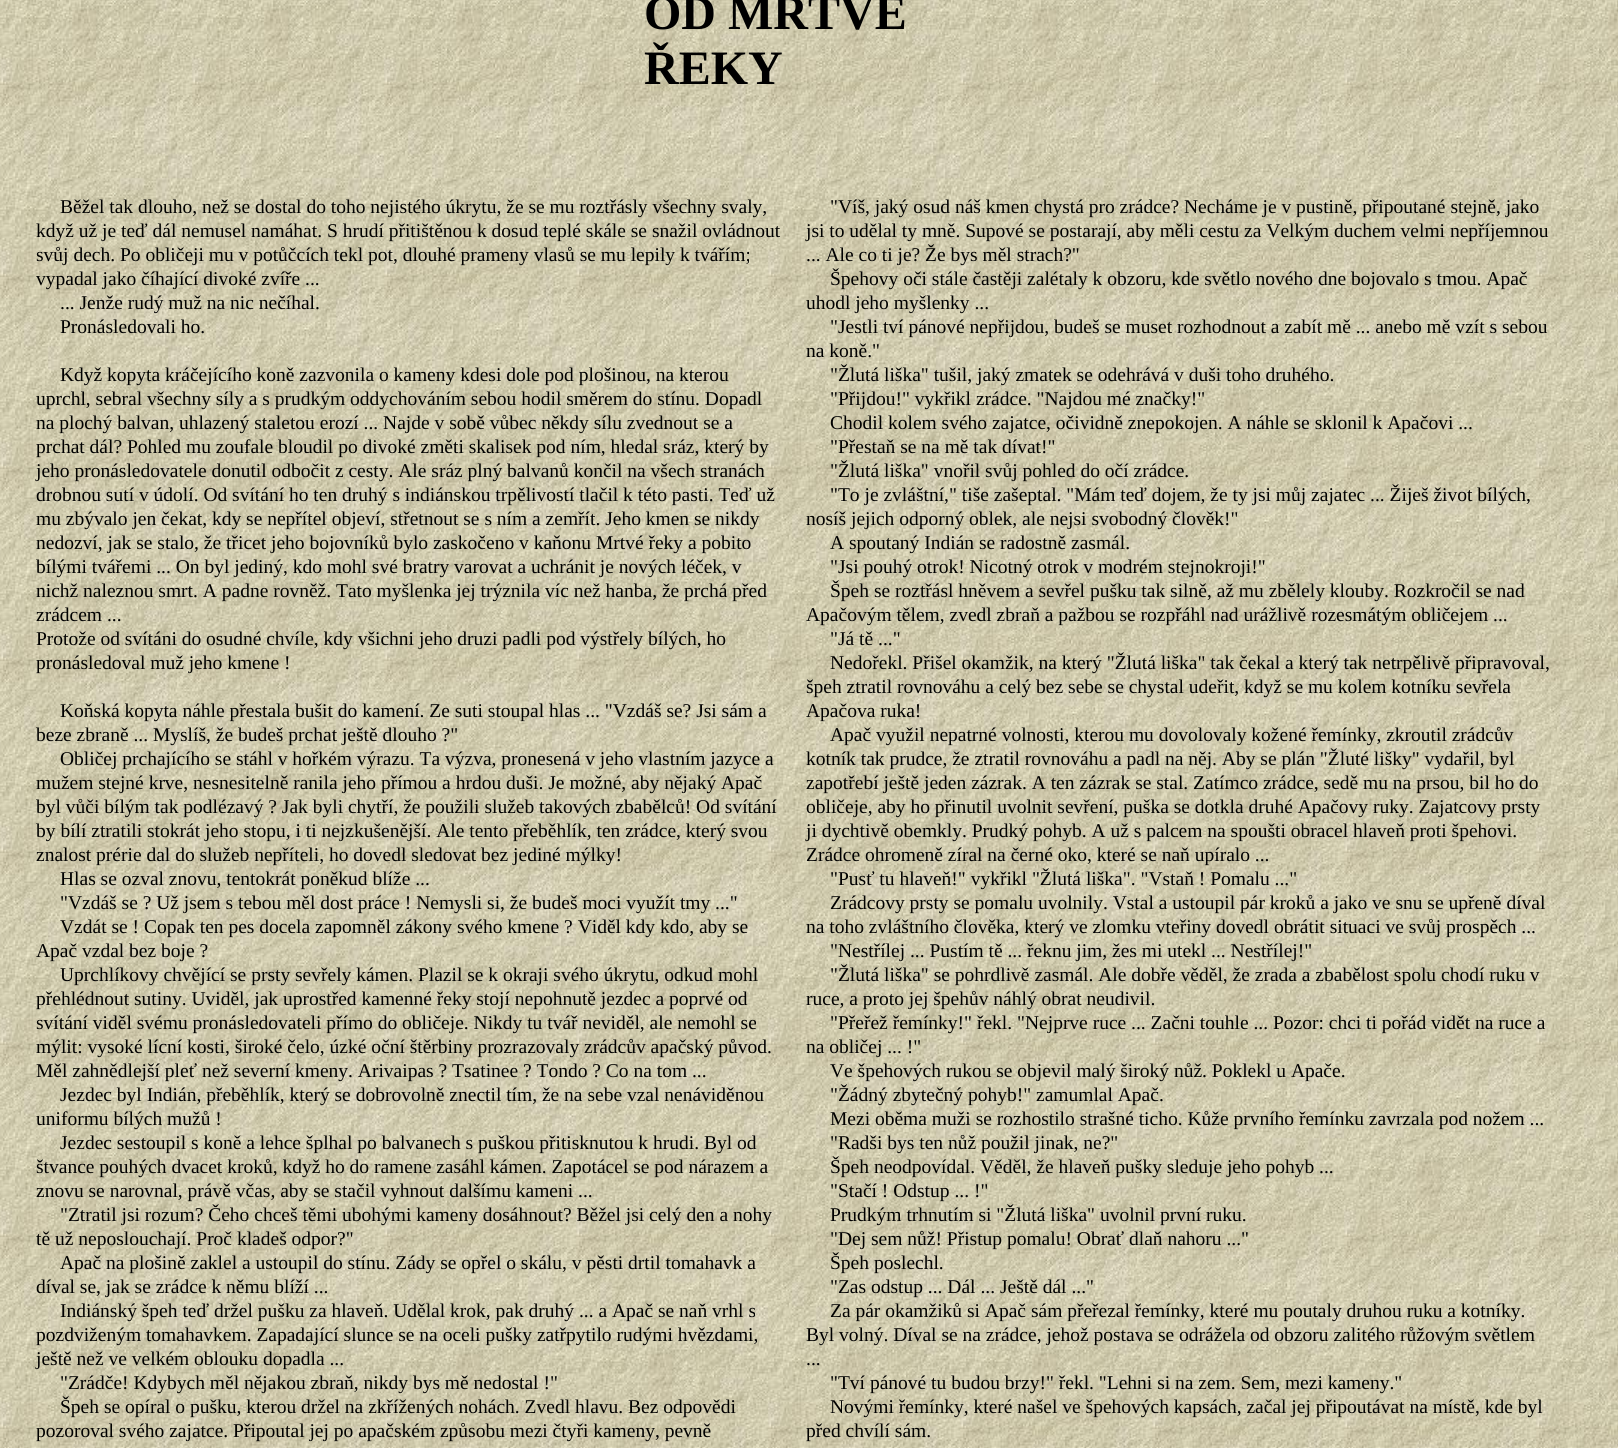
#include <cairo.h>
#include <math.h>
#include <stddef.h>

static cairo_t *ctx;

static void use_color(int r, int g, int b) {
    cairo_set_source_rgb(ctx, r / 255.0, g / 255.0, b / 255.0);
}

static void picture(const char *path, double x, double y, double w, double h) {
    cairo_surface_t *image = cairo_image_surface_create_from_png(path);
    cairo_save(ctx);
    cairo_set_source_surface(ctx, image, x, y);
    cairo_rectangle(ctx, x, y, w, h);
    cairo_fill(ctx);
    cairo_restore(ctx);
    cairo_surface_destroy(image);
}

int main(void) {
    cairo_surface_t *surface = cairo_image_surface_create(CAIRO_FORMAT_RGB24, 1618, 1448);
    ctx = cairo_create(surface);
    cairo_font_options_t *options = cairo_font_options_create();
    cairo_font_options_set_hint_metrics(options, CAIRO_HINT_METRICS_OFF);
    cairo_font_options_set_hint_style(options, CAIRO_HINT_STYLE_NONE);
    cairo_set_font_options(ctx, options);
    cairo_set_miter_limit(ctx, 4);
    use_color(255, 255, 255);
    cairo_paint(ctx);
    picture("img1.png", 0, 0, 1618, 1448);
    cairo_select_font_face(ctx, "Liberation Serif", CAIRO_FONT_SLANT_NORMAL, CAIRO_FONT_WEIGHT_BOLD);
    cairo_set_font_size(ctx, 48);
    use_color(0, 0, 0);
    cairo_move_to(ctx, 644, 29);
    cairo_show_text(ctx, "OD MRTVÉ");
    cairo_move_to(ctx, 644, 84);
    cairo_show_text(ctx, "ŘEKY");
    cairo_select_font_face(ctx, "Liberation Serif", CAIRO_FONT_SLANT_NORMAL, CAIRO_FONT_WEIGHT_NORMAL);
    cairo_set_font_size(ctx, 19.5);
    cairo_move_to(ctx, 60, 213);
    cairo_show_text(ctx, "Běžel tak dlouho, než se dostal do toho nejistého úkrytu, že se mu roztřásly všechny svaly,");
    cairo_move_to(ctx, 36, 237);
    cairo_show_text(ctx, "když už je teď dál nemusel namáhat. S hrudí přitištěnou k dosud teplé skále se snažil ovládnout");
    cairo_move_to(ctx, 36, 261);
    cairo_show_text(ctx, "svůj dech. Po obličeji mu v potůčcích tekl pot, dlouhé prameny vlasů se mu lepily k tvářím;");
    cairo_move_to(ctx, 36, 285);
    cairo_show_text(ctx, "vypadal jako číhající divoké zvíře ...");
    cairo_move_to(ctx, 60, 309);
    cairo_show_text(ctx, "... Jenže rudý muž na nic nečíhal.");
    cairo_move_to(ctx, 60, 333);
    cairo_show_text(ctx, "Pronásledovali ho.");
    cairo_move_to(ctx, 60, 381);
    cairo_show_text(ctx, "Když kopyta kráčejícího koně zazvonila o kameny kdesi dole pod plošinou, na kterou");
    cairo_move_to(ctx, 36, 405);
    cairo_show_text(ctx, "uprchl, sebral všechny síly a s prudkým oddychováním sebou hodil směrem do stínu. Dopadl");
    cairo_move_to(ctx, 36, 429);
    cairo_show_text(ctx, "na plochý balvan, uhlazený staletou erozí ... Najde v sobě vůbec někdy sílu zvednout se a");
    cairo_move_to(ctx, 36, 453);
    cairo_show_text(ctx, "prchat dál? Pohled mu zoufale bloudil po divoké změti skalisek pod ním, hledal sráz, který by");
    cairo_move_to(ctx, 36, 477);
    cairo_show_text(ctx, "jeho pronásledovatele donutil odbočit z cesty. Ale sráz plný balvanů končil na všech stranách");
    cairo_move_to(ctx, 36, 501);
    cairo_show_text(ctx, "drobnou sutí v údolí. Od svítání ho ten druhý s indiánskou trpělivostí tlačil k této pasti. Teď už");
    cairo_move_to(ctx, 36, 525);
    cairo_show_text(ctx, "mu zbývalo jen čekat, kdy se nepřítel objeví, střetnout se s ním a zemřít. Jeho kmen se nikdy");
    cairo_move_to(ctx, 36, 549);
    cairo_show_text(ctx, "nedozví, jak se stalo, že třicet jeho bojovníků bylo zaskočeno v kaňonu Mrtvé řeky a pobito");
    cairo_move_to(ctx, 36, 573);
    cairo_show_text(ctx, "bílými tvářemi ... On byl jediný, kdo mohl své bratry varovat a uchránit je nových léček, v");
    cairo_move_to(ctx, 36, 597);
    cairo_show_text(ctx, "nichž naleznou smrt. A padne rovněž. Tato myšlenka jej trýznila víc než hanba, že prchá před");
    cairo_move_to(ctx, 36, 621);
    cairo_show_text(ctx, "zrádcem ...");
    cairo_move_to(ctx, 36, 645);
    cairo_show_text(ctx, "Protože od svítáni do osudné chvíle, kdy všichni jeho druzi padli pod výstřely bílých, ho");
    cairo_move_to(ctx, 36, 669);
    cairo_show_text(ctx, "pronásledoval muž jeho kmene !");
    cairo_move_to(ctx, 60, 717);
    cairo_show_text(ctx, "Koňská kopyta náhle přestala bušit do kamení. Ze suti stoupal hlas ... \"Vzdáš se? Jsi sám a");
    cairo_move_to(ctx, 36, 741);
    cairo_show_text(ctx, "beze zbraně ... Myslíš, že budeš prchat ještě dlouho ?\"");
    cairo_move_to(ctx, 60, 765);
    cairo_show_text(ctx, "Obličej prchajícího se stáhl v hořkém výrazu. Ta výzva, pronesená v jeho vlastním jazyce a");
    cairo_move_to(ctx, 36, 789);
    cairo_show_text(ctx, "mužem stejné krve, nesnesitelně ranila jeho přímou a hrdou duši. Je možné, aby nějaký Apač");
    cairo_move_to(ctx, 36, 813);
    cairo_show_text(ctx, "byl vůči bílým tak podlézavý ? Jak byli chytří, že použili služeb takových zbabělců! Od svítání");
    cairo_move_to(ctx, 36, 837);
    cairo_show_text(ctx, "by bílí ztratili stokrát jeho stopu, i ti nejzkušenější. Ale tento přeběhlík, ten zrádce, který svou");
    cairo_move_to(ctx, 36, 861);
    cairo_show_text(ctx, "znalost prérie dal do služeb nepříteli, ho dovedl sledovat bez jediné mýlky!");
    cairo_move_to(ctx, 60, 885);
    cairo_show_text(ctx, "Hlas se ozval znovu, tentokrát poněkud blíže ...");
    cairo_move_to(ctx, 60, 909);
    cairo_show_text(ctx, "\"Vzdáš se ? Už jsem s tebou měl dost práce ! Nemysli si, že budeš moci využít tmy ...\"");
    cairo_move_to(ctx, 60, 933);
    cairo_show_text(ctx, "Vzdát se ! Copak ten pes docela zapomněl zákony svého kmene ? Viděl kdy kdo, aby se");
    cairo_move_to(ctx, 36, 957);
    cairo_show_text(ctx, "Apač vzdal bez boje ?");
    cairo_move_to(ctx, 60, 981);
    cairo_show_text(ctx, "Uprchlíkovy chvějící se prsty sevřely kámen. Plazil se k okraji svého úkrytu, odkud mohl");
    cairo_move_to(ctx, 36, 1005);
    cairo_show_text(ctx, "přehlédnout sutiny. Uviděl, jak uprostřed kamenné řeky stojí nepohnutě jezdec a poprvé od");
    cairo_move_to(ctx, 36, 1029);
    cairo_show_text(ctx, "svítání viděl svému pronásledovateli přímo do obličeje. Nikdy tu tvář neviděl, ale nemohl se");
    cairo_move_to(ctx, 36, 1053);
    cairo_show_text(ctx, "mýlit: vysoké lícní kosti, široké čelo, úzké oční štěrbiny prozrazovaly zrádcův apačský původ.");
    cairo_move_to(ctx, 36, 1077);
    cairo_show_text(ctx, "Měl zahnědlejší pleť než severní kmeny. Arivaipas ? Tsatinee ? Tondo ? Co na tom ...");
    cairo_move_to(ctx, 60, 1101);
    cairo_show_text(ctx, "Jezdec byl Indián, přeběhlík, který se dobrovolně znectil tím, že na sebe vzal nenáviděnou");
    cairo_move_to(ctx, 36, 1125);
    cairo_show_text(ctx, "uniformu bílých mužů !");
    cairo_move_to(ctx, 60, 1149);
    cairo_show_text(ctx, "Jezdec sestoupil s koně a lehce šplhal po balvanech s puškou přitisknutou k hrudi. Byl od");
    cairo_move_to(ctx, 36, 1173);
    cairo_show_text(ctx, "štvance pouhých dvacet kroků, když ho do ramene zasáhl kámen. Zapotácel se pod nárazem a");
    cairo_move_to(ctx, 36, 1197);
    cairo_show_text(ctx, "znovu se narovnal, právě včas, aby se stačil vyhnout dalšímu kameni ...");
    cairo_move_to(ctx, 60, 1221);
    cairo_show_text(ctx, "\"Ztratil jsi rozum? Čeho chceš těmi ubohými kameny dosáhnout? Běžel jsi celý den a nohy");
    cairo_move_to(ctx, 36, 1245);
    cairo_show_text(ctx, "tě už neposlouchají. Proč kladeš odpor?\"");
    cairo_move_to(ctx, 60, 1269);
    cairo_show_text(ctx, "Apač na plošině zaklel a ustoupil do stínu. Zády se opřel o skálu, v pěsti drtil tomahavk a");
    cairo_move_to(ctx, 36, 1293);
    cairo_show_text(ctx, "díval se, jak se zrádce k němu blíží ...");
    cairo_move_to(ctx, 60, 1317);
    cairo_show_text(ctx, "Indiánský špeh teď držel pušku za hlaveň. Udělal krok, pak druhý ... a Apač se naň vrhl s");
    cairo_move_to(ctx, 36, 1341);
    cairo_show_text(ctx, "pozdviženým tomahavkem. Zapadající slunce se na oceli pušky zatřpytilo rudými hvězdami,");
    cairo_move_to(ctx, 36, 1365);
    cairo_show_text(ctx, "ještě než ve velkém oblouku dopadla ...");
    cairo_move_to(ctx, 60, 1389);
    cairo_show_text(ctx, "\"Zrádče! Kdybych měl nějakou zbraň, nikdy bys mě nedostal !\"");
    cairo_move_to(ctx, 60, 1413);
    cairo_show_text(ctx, "Špeh se opíral o pušku, kterou držel na zkřížených nohách. Zvedl hlavu. Bez odpovědi");
    cairo_move_to(ctx, 36, 1437);
    cairo_show_text(ctx, "pozoroval svého zajatce. Připoutal jej po apačském způsobu mezi čtyři kameny, pevně");
    cairo_move_to(ctx, 830, 213);
    cairo_show_text(ctx, "\"Víš, jaký osud náš kmen chystá pro zrádce? Necháme je v pustině, připoutané stejně, jako");
    cairo_move_to(ctx, 806, 237);
    cairo_show_text(ctx, "jsi to udělal ty mně. Supové se postarají, aby měli cestu za Velkým duchem velmi nepříjemnou");
    cairo_move_to(ctx, 806, 261);
    cairo_show_text(ctx, "... Ale co ti je? Že bys měl strach?\"");
    cairo_move_to(ctx, 830, 285);
    cairo_show_text(ctx, "Špehovy oči stále častěji zalétaly k obzoru, kde světlo nového dne bojovalo s tmou. Apač");
    cairo_move_to(ctx, 806, 309);
    cairo_show_text(ctx, "uhodl jeho myšlenky ...");
    cairo_move_to(ctx, 830, 333);
    cairo_show_text(ctx, "\"Jestli tví pánové nepřijdou, budeš se muset rozhodnout a zabít mě ... anebo mě vzít s sebou");
    cairo_move_to(ctx, 806, 357);
    cairo_show_text(ctx, "na koně.\"");
    cairo_move_to(ctx, 830, 381);
    cairo_show_text(ctx, "\"Žlutá liška\" tušil, jaký zmatek se odehrává v duši toho druhého.");
    cairo_move_to(ctx, 830, 405);
    cairo_show_text(ctx, "\"Přijdou!\" vykřikl zrádce. \"Najdou mé značky!\"");
    cairo_move_to(ctx, 830, 429);
    cairo_show_text(ctx, "Chodil kolem svého zajatce, očividně znepokojen. A náhle se sklonil k Apačovi ...");
    cairo_move_to(ctx, 830, 453);
    cairo_show_text(ctx, "\"Přestaň se na mě tak dívat!\"");
    cairo_move_to(ctx, 830, 477);
    cairo_show_text(ctx, "\"Žlutá liška\" vnořil svůj pohled do očí zrádce.");
    cairo_move_to(ctx, 830, 501);
    cairo_show_text(ctx, "\"To je zvláštní,\" tiše zašeptal. \"Mám teď dojem, že ty jsi můj zajatec ... Žiješ život bílých,");
    cairo_move_to(ctx, 806, 525);
    cairo_show_text(ctx, "nosíš jejich odporný oblek, ale nejsi svobodný člověk!\"");
    cairo_move_to(ctx, 830, 549);
    cairo_show_text(ctx, "A spoutaný Indián se radostně zasmál.");
    cairo_move_to(ctx, 830, 573);
    cairo_show_text(ctx, "\"Jsi pouhý otrok! Nicotný otrok v modrém stejnokroji!\"");
    cairo_move_to(ctx, 830, 597);
    cairo_show_text(ctx, "Špeh se roztřásl hněvem a sevřel pušku tak silně, až mu zbělely klouby. Rozkročil se nad");
    cairo_move_to(ctx, 806, 621);
    cairo_show_text(ctx, "Apačovým tělem, zvedl zbraň a pažbou se rozpřáhl nad urážlivě rozesmátým obličejem ...");
    cairo_move_to(ctx, 830, 645);
    cairo_show_text(ctx, "\"Já tě ...\"");
    cairo_move_to(ctx, 830, 669);
    cairo_show_text(ctx, "Nedořekl. Přišel okamžik, na který \"Žlutá liška\" tak čekal a který tak netrpělivě připravoval,");
    cairo_move_to(ctx, 806, 693);
    cairo_show_text(ctx, "špeh ztratil rovnováhu a celý bez sebe se chystal udeřit, když se mu kolem kotníku sevřela");
    cairo_move_to(ctx, 806, 717);
    cairo_show_text(ctx, "Apačova ruka!");
    cairo_move_to(ctx, 830, 741);
    cairo_show_text(ctx, "Apač využil nepatrné volnosti, kterou mu dovolovaly kožené řemínky, zkroutil zrádcův");
    cairo_move_to(ctx, 806, 765);
    cairo_show_text(ctx, "kotník tak prudce, že ztratil rovnováhu a padl na něj. Aby se plán \"Žluté lišky\" vydařil, byl");
    cairo_move_to(ctx, 806, 789);
    cairo_show_text(ctx, "zapotřebí ještě jeden zázrak. A ten zázrak se stal. Zatímco zrádce, sedě mu na prsou, bil ho do");
    cairo_move_to(ctx, 806, 813);
    cairo_show_text(ctx, "obličeje, aby ho přinutil uvolnit sevření, puška se dotkla druhé Apačovy ruky. Zajatcovy prsty");
    cairo_move_to(ctx, 806, 837);
    cairo_show_text(ctx, "ji dychtivě obemkly. Prudký pohyb. A už s palcem na spoušti obracel hlaveň proti špehovi.");
    cairo_move_to(ctx, 806, 861);
    cairo_show_text(ctx, "Zrádce ohromeně zíral na černé oko, které se naň upíralo ...");
    cairo_move_to(ctx, 830, 885);
    cairo_show_text(ctx, "\"Pusť tu hlaveň!\" vykřikl \"Žlutá liška\". \"Vstaň ! Pomalu ...\"");
    cairo_move_to(ctx, 830, 909);
    cairo_show_text(ctx, "Zrádcovy prsty se pomalu uvolnily. Vstal a ustoupil pár kroků a jako ve snu se upřeně díval");
    cairo_move_to(ctx, 806, 933);
    cairo_show_text(ctx, "na toho zvláštního člověka, který ve zlomku vteřiny dovedl obrátit situaci ve svůj prospěch ...");
    cairo_move_to(ctx, 830, 957);
    cairo_show_text(ctx, "\"Nestřílej ... Pustím tě ... řeknu jim, žes mi utekl ... Nestřílej!\"");
    cairo_move_to(ctx, 830, 981);
    cairo_show_text(ctx, "\"Žlutá liška\" se pohrdlivě zasmál. Ale dobře věděl, že zrada a zbabělost spolu chodí ruku v");
    cairo_move_to(ctx, 806, 1005);
    cairo_show_text(ctx, "ruce, a proto jej špehův náhlý obrat neudivil.");
    cairo_move_to(ctx, 830, 1029);
    cairo_show_text(ctx, "\"Přeřež řemínky!\" řekl. \"Nejprve ruce ... Začni touhle ... Pozor: chci ti pořád vidět na ruce a");
    cairo_move_to(ctx, 806, 1053);
    cairo_show_text(ctx, "na obličej ... !\"");
    cairo_move_to(ctx, 830, 1077);
    cairo_show_text(ctx, "Ve špehových rukou se objevil malý široký nůž. Poklekl u Apače.");
    cairo_move_to(ctx, 830, 1101);
    cairo_show_text(ctx, "\"Žádný zbytečný pohyb!\" zamumlal Apač.");
    cairo_move_to(ctx, 830, 1125);
    cairo_show_text(ctx, "Mezi oběma muži se rozhostilo strašné ticho. Kůže prvního řemínku zavrzala pod nožem ...");
    cairo_move_to(ctx, 830, 1149);
    cairo_show_text(ctx, "\"Radši bys ten nůž použil jinak, ne?\"");
    cairo_move_to(ctx, 830, 1173);
    cairo_show_text(ctx, "Špeh neodpovídal. Věděl, že hlaveň pušky sleduje jeho pohyb ...");
    cairo_move_to(ctx, 830, 1197);
    cairo_show_text(ctx, "\"Stačí ! Odstup ... !\"");
    cairo_move_to(ctx, 830, 1221);
    cairo_show_text(ctx, "Prudkým trhnutím si \"Žlutá liška\" uvolnil první ruku.");
    cairo_move_to(ctx, 830, 1245);
    cairo_show_text(ctx, "\"Dej sem nůž! Přistup pomalu! Obrať dlaň nahoru ...\"");
    cairo_move_to(ctx, 830, 1269);
    cairo_show_text(ctx, "Špeh poslechl.");
    cairo_move_to(ctx, 830, 1293);
    cairo_show_text(ctx, "\"Zas odstup ... Dál ... Ještě dál ...\"");
    cairo_move_to(ctx, 830, 1317);
    cairo_show_text(ctx, "Za pár okamžiků si Apač sám přeřezal řemínky, které mu poutaly druhou ruku a kotníky.");
    cairo_move_to(ctx, 806, 1341);
    cairo_show_text(ctx, "Byl volný. Díval se na zrádce, jehož postava se odrážela od obzoru zalitého růžovým světlem");
    cairo_move_to(ctx, 806, 1365);
    cairo_show_text(ctx, "...");
    cairo_move_to(ctx, 830, 1389);
    cairo_show_text(ctx, "\"Tví pánové tu budou brzy!\" řekl. \"Lehni si na zem. Sem, mezi kameny.\"");
    cairo_move_to(ctx, 830, 1413);
    cairo_show_text(ctx, "Novými řemínky, které našel ve špehových kapsách, začal jej připoutávat na místě, kde byl");
    cairo_move_to(ctx, 806, 1437);
    cairo_show_text(ctx, "před chvílí sám.");
    cairo_surface_write_to_png(surface, "result.png");
    cairo_font_options_destroy(options);
    cairo_destroy(ctx);
    cairo_surface_destroy(surface);
    return 0;
}
